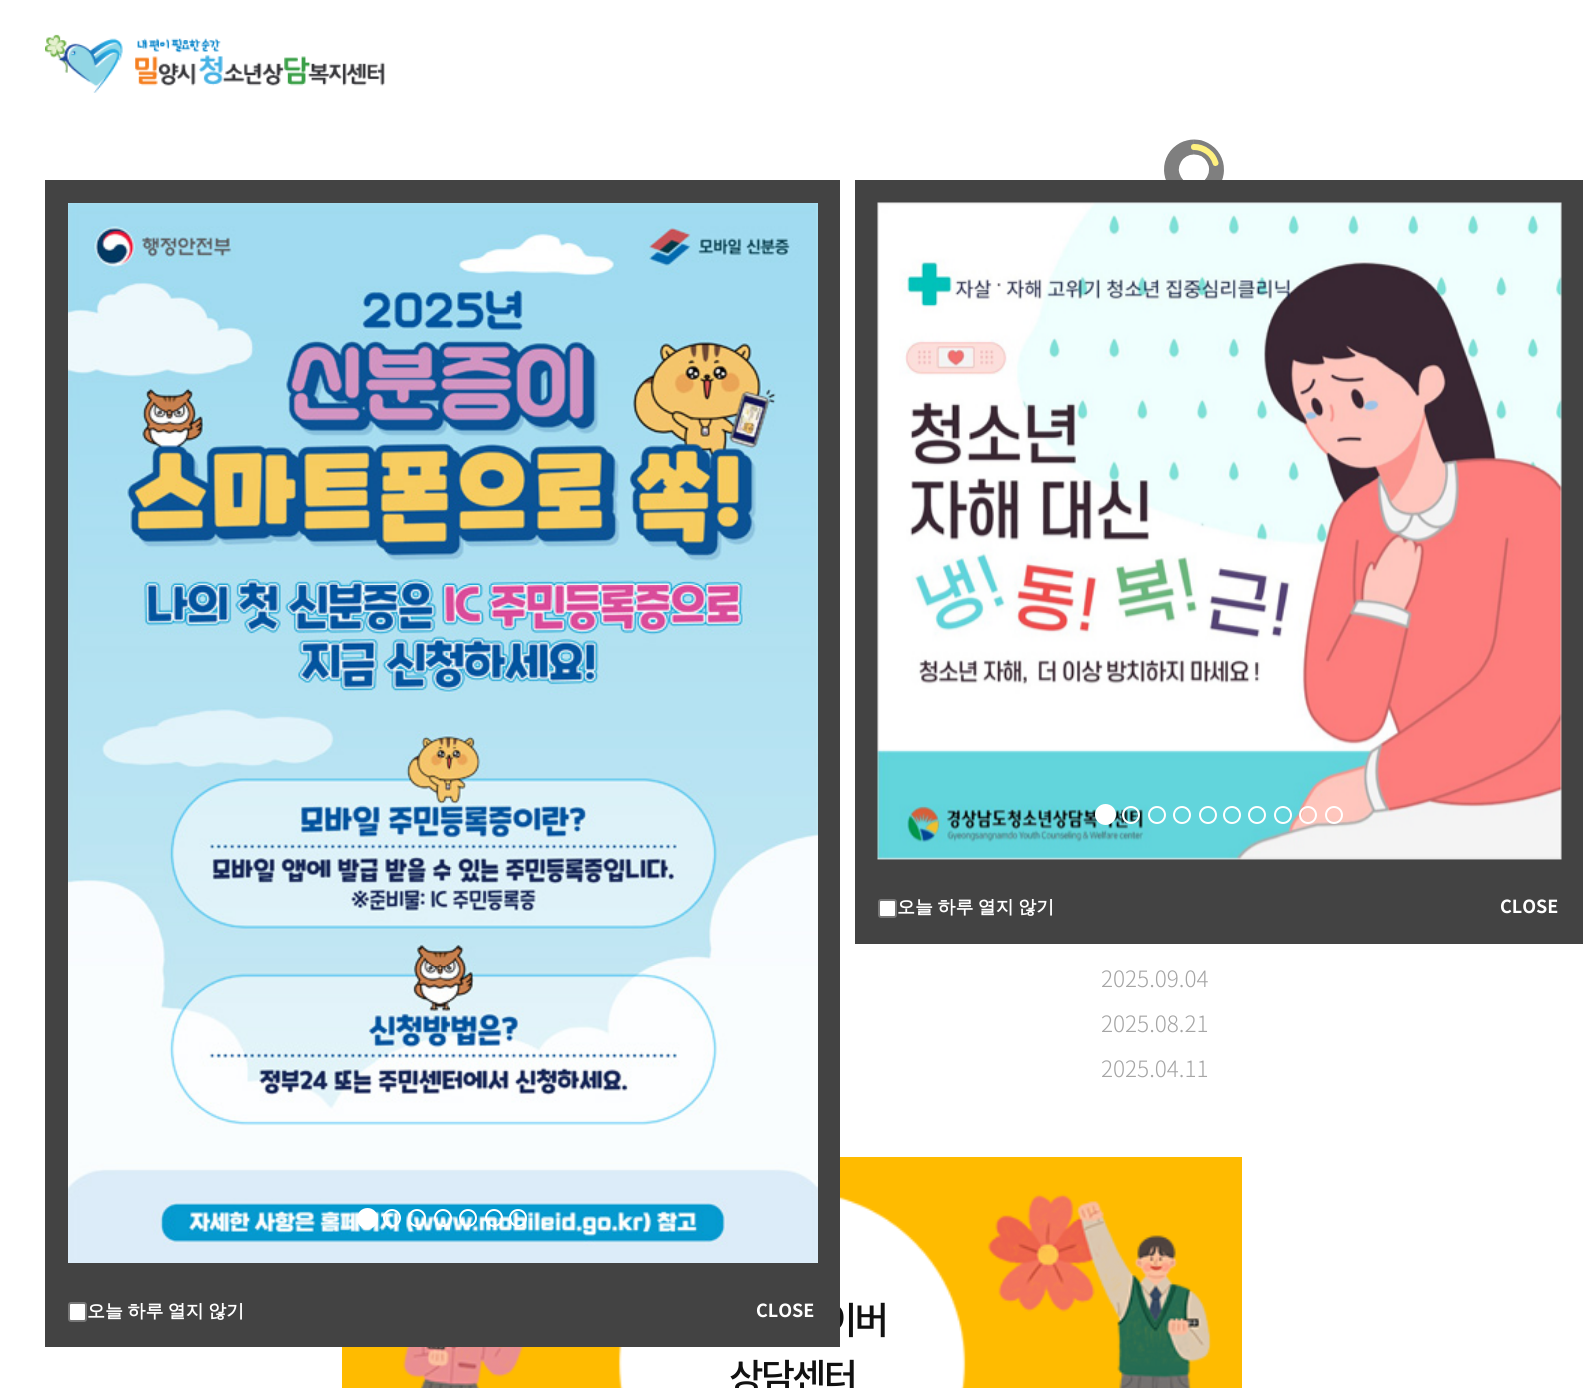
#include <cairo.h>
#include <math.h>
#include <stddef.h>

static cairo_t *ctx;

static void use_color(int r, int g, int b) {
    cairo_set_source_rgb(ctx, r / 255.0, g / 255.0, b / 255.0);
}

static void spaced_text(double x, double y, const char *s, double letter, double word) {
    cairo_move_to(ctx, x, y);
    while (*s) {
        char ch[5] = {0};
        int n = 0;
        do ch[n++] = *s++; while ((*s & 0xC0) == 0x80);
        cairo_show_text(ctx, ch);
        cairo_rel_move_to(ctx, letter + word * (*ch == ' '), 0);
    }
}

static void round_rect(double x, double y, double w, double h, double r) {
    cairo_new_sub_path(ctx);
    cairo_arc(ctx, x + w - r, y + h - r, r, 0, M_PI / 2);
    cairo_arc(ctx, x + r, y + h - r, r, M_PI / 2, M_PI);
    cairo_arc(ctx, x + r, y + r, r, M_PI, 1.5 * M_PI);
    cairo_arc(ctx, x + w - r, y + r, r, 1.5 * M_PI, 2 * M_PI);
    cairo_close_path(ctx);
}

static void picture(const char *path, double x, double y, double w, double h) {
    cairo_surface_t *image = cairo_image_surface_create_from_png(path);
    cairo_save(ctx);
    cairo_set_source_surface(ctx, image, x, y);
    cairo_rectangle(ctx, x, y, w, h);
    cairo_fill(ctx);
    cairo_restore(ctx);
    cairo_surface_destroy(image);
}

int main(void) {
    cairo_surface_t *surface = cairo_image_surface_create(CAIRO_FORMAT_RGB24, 1583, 1388);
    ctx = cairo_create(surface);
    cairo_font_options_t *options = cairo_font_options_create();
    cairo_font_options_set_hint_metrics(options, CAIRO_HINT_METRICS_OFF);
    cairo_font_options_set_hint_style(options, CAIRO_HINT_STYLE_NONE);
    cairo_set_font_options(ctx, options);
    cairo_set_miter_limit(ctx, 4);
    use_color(255, 255, 255);
    cairo_paint(ctx);
    picture("img1.png", 45, 34, 340, 59);
    picture("img4.png", 762, 139, 462, 638);
    use_color(67, 67, 67);
    cairo_rectangle(ctx, 855, 180, 728, 764);
    cairo_fill(ctx);
    picture("img2.png", 877, 202, 685, 658);
    use_color(255, 255, 255);
    cairo_arc(ctx, 1105.5, 814.5, 9.5, 0, 2 * M_PI);
    cairo_fill_preserve(ctx);
    cairo_stroke(ctx);
    cairo_arc(ctx, 1131, 815, 8, 0, 2 * M_PI);
    cairo_stroke(ctx);
    cairo_arc(ctx, 1157, 815, 8, 0, 2 * M_PI);
    cairo_stroke(ctx);
    cairo_arc(ctx, 1182, 815, 8, 0, 2 * M_PI);
    cairo_stroke(ctx);
    cairo_arc(ctx, 1208, 815, 8, 0, 2 * M_PI);
    cairo_stroke(ctx);
    cairo_arc(ctx, 1232, 815, 8, 0, 2 * M_PI);
    cairo_stroke(ctx);
    cairo_arc(ctx, 1257, 815, 8, 0, 2 * M_PI);
    cairo_stroke(ctx);
    cairo_arc(ctx, 1283, 815, 8, 0, 2 * M_PI);
    cairo_stroke(ctx);
    cairo_arc(ctx, 1308, 815, 8, 0, 2 * M_PI);
    cairo_stroke(ctx);
    cairo_arc(ctx, 1334, 815, 8, 0, 2 * M_PI);
    cairo_stroke(ctx);
    round_rect(879, 900, 17, 17, 2);
    cairo_fill_preserve(ctx);
    use_color(118, 118, 118);
    cairo_stroke(ctx);
    cairo_select_font_face(ctx, "WenQuanYi Zen Hei", CAIRO_FONT_SLANT_NORMAL, CAIRO_FONT_WEIGHT_BOLD);
    cairo_set_font_size(ctx, 18);
    use_color(255, 255, 255);
    spaced_text(897, 913, "오늘 하루 열지 않기", 0, -1);
    cairo_select_font_face(ctx, "Noto Sans KR", CAIRO_FONT_SLANT_NORMAL, CAIRO_FONT_WEIGHT_BOLD);
    cairo_move_to(ctx, 1500, 913);
    cairo_show_text(ctx, "CLOSE");
    use_color(255, 187, 0);
    cairo_rectangle(ctx, 342, 1157, 900, 231);
    cairo_fill(ctx);
    picture("img5.png", 403, 1194, 809, 194);
    cairo_select_font_face(ctx, "Noto Sans KR Medium", CAIRO_FONT_SLANT_NORMAL, CAIRO_FONT_WEIGHT_NORMAL);
    cairo_set_font_size(ctx, 37.5);
    use_color(17, 17, 17);
    spaced_text(823, 1334, "이버", -3, 0);
    use_color(67, 67, 67);
    cairo_rectangle(ctx, 45, 180, 795, 1167);
    cairo_fill(ctx);
    picture("img3.png", 68, 203, 750, 1060);
    use_color(255, 255, 255);
    cairo_arc(ctx, 367.5, 1218.5, 9.5, 0, 2 * M_PI);
    cairo_fill_preserve(ctx);
    cairo_stroke(ctx);
    cairo_arc(ctx, 392, 1218, 8, 0, 2 * M_PI);
    cairo_stroke(ctx);
    cairo_arc(ctx, 417, 1218, 8, 0, 2 * M_PI);
    cairo_stroke(ctx);
    cairo_arc(ctx, 443, 1218, 8, 0, 2 * M_PI);
    cairo_stroke(ctx);
    cairo_arc(ctx, 468, 1218, 8, 0, 2 * M_PI);
    cairo_stroke(ctx);
    cairo_arc(ctx, 494, 1218, 8, 0, 2 * M_PI);
    cairo_stroke(ctx);
    cairo_arc(ctx, 518, 1218, 8, 0, 2 * M_PI);
    cairo_stroke(ctx);
    round_rect(69, 1303, 17, 18, 2);
    cairo_fill_preserve(ctx);
    use_color(118, 118, 118);
    cairo_stroke(ctx);
    cairo_select_font_face(ctx, "WenQuanYi Zen Hei", CAIRO_FONT_SLANT_NORMAL, CAIRO_FONT_WEIGHT_BOLD);
    cairo_set_font_size(ctx, 18);
    use_color(255, 255, 255);
    spaced_text(87, 1317, "오늘 하루 열지 않기", 0, -1);
    cairo_select_font_face(ctx, "Noto Sans KR", CAIRO_FONT_SLANT_NORMAL, CAIRO_FONT_WEIGHT_BOLD);
    cairo_move_to(ctx, 756, 1317);
    cairo_show_text(ctx, "CLOSE");
    cairo_select_font_face(ctx, "Noto Sans KR Light", CAIRO_FONT_SLANT_NORMAL, CAIRO_FONT_WEIGHT_NORMAL);
    cairo_set_font_size(ctx, 22.5);
    use_color(165, 165, 165);
    cairo_move_to(ctx, 1101, 987);
    cairo_show_text(ctx, "2025.09.04");
    cairo_move_to(ctx, 1101, 1032);
    cairo_show_text(ctx, "2025.08.21");
    cairo_move_to(ctx, 1101, 1077);
    cairo_show_text(ctx, "2025.04.11");
    cairo_select_font_face(ctx, "Noto Sans KR Medium", CAIRO_FONT_SLANT_NORMAL, CAIRO_FONT_WEIGHT_NORMAL);
    cairo_set_font_size(ctx, 37.5);
    use_color(17, 17, 17);
    spaced_text(729, 1391, "상담센터", -3, 0);
    cairo_surface_write_to_png(surface, "result.png");
    cairo_font_options_destroy(options);
    cairo_destroy(ctx);
    cairo_surface_destroy(surface);
    return 0;
}
